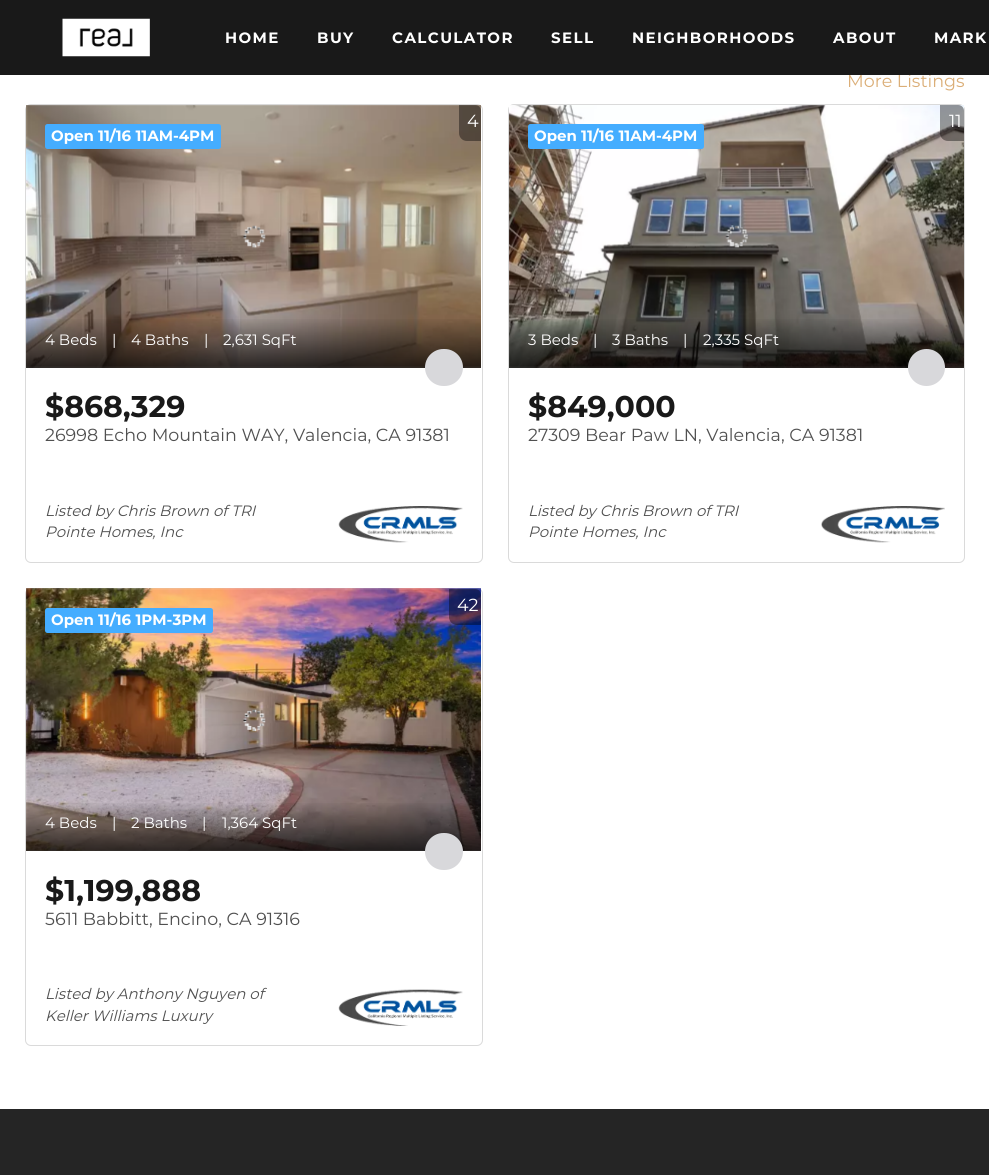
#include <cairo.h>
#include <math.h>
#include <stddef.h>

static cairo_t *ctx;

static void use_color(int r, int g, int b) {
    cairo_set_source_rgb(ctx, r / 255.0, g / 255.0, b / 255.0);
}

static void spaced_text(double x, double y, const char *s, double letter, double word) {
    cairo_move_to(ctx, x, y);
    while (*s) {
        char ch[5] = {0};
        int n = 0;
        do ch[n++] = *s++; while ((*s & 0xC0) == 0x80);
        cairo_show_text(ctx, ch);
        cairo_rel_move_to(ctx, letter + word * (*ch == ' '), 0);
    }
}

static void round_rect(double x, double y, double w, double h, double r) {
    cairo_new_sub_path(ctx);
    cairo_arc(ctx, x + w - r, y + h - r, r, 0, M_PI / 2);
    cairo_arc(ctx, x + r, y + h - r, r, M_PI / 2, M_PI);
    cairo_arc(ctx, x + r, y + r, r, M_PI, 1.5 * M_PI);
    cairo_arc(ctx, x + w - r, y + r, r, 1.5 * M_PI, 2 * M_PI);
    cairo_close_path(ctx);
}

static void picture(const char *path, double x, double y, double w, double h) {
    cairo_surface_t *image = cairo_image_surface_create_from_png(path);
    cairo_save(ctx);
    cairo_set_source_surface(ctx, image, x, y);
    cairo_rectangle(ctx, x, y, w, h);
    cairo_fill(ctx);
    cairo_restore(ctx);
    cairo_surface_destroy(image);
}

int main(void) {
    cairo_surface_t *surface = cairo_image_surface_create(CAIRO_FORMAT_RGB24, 989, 1175);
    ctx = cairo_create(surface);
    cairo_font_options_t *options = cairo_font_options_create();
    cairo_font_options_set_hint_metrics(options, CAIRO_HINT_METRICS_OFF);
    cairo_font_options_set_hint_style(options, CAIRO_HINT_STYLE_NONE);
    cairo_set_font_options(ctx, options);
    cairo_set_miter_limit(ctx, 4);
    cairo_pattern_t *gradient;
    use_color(255, 255, 255);
    cairo_paint(ctx);
    cairo_select_font_face(ctx, "Montserrat", CAIRO_FONT_SLANT_NORMAL, CAIRO_FONT_WEIGHT_NORMAL);
    cairo_set_font_size(ctx, 17.5);
    use_color(219, 174, 119);
    cairo_move_to(ctx, 847, 87);
    cairo_show_text(ctx, "More Listings");
    use_color(25, 25, 25);
    cairo_rectangle(ctx, 0, 0, 989, 75);
    cairo_fill(ctx);
    picture("img1.png", 62, 18, 88, 39);
    cairo_select_font_face(ctx, "Montserrat", CAIRO_FONT_SLANT_NORMAL, CAIRO_FONT_WEIGHT_BOLD);
    cairo_set_font_size(ctx, 15);
    use_color(255, 255, 255);
    spaced_text(225, 43, "HOME", 1.4, 0);
    spaced_text(317, 43, "BUY", 1.4, 0);
    spaced_text(392, 43, "CALCULATOR", 1.4, 0);
    spaced_text(551, 43, "SELL", 1.4, 0);
    spaced_text(632, 43, "NEIGHBORHOODS", 1.4, 0);
    spaced_text(833, 43, "ABOUT", 1.4, 0);
    spaced_text(934, 43, "MARK", 1.4, 0);
    round_rect(25.5, 104.5, 457, 458, 5.5);
    use_color(218, 218, 218);
    cairo_set_line_width(ctx, 1);
    cairo_stroke(ctx);
    picture("img2.png", 26, 105, 455, 263);
    picture("img3.png", 243, 225, 23, 24);
    cairo_set_source_rgba(ctx, 0, 0, 0, 0.4);
    cairo_new_path(ctx);
    cairo_move_to(ctx, 459, 105);
    cairo_line_to(ctx, 475, 105);
    cairo_curve_to(ctx, 478.5, 105, 481, 107.5, 481, 111);
    cairo_line_to(ctx, 481, 141);
    cairo_line_to(ctx, 467, 141);
    cairo_curve_to(ctx, 462.5, 141, 459, 137.5, 459, 133);
    cairo_close_path(ctx);
    cairo_fill(ctx);
    cairo_select_font_face(ctx, "Montserrat", CAIRO_FONT_SLANT_NORMAL, CAIRO_FONT_WEIGHT_NORMAL);
    cairo_set_font_size(ctx, 17.5);
    use_color(255, 255, 255);
    cairo_move_to(ctx, 467, 127);
    cairo_show_text(ctx, "4");
    gradient = cairo_pattern_create_linear(254, 317, 254, 368);
    cairo_pattern_add_color_stop_rgba(gradient, 0, 0, 0, 0, 0);
    cairo_pattern_add_color_stop_rgba(gradient, 1, 0, 0, 0, 0.7);
    cairo_set_source(ctx, gradient);
    cairo_pattern_destroy(gradient);
    cairo_rectangle(ctx, 26, 319, 455, 49);
    cairo_fill(ctx);
    cairo_set_font_size(ctx, 15);
    use_color(255, 255, 255);
    cairo_move_to(ctx, 45, 345);
    cairo_show_text(ctx, "4 Beds");
    cairo_move_to(ctx, 112, 345);
    cairo_show_text(ctx, "|");
    cairo_move_to(ctx, 131, 345);
    cairo_show_text(ctx, "4 Baths");
    cairo_move_to(ctx, 204, 345);
    cairo_show_text(ctx, "|");
    cairo_move_to(ctx, 223, 345);
    cairo_show_text(ctx, "2,631 SqFt");
    use_color(69, 173, 255);
    round_rect(45, 124, 176, 25, 2.5);
    cairo_fill(ctx);
    cairo_select_font_face(ctx, "Montserrat", CAIRO_FONT_SLANT_NORMAL, CAIRO_FONT_WEIGHT_BOLD);
    use_color(255, 255, 255);
    cairo_move_to(ctx, 51, 141);
    cairo_show_text(ctx, "Open 11/16 11AM-4PM");
    use_color(216, 216, 219);
    round_rect(425, 349, 38, 37, 18.5);
    cairo_fill(ctx);
    cairo_set_font_size(ctx, 30);
    use_color(25, 25, 25);
    cairo_move_to(ctx, 45, 417);
    cairo_show_text(ctx, "$868,329");
    cairo_select_font_face(ctx, "Montserrat", CAIRO_FONT_SLANT_NORMAL, CAIRO_FONT_WEIGHT_NORMAL);
    cairo_set_font_size(ctx, 17.5);
    use_color(80, 80, 80);
    cairo_move_to(ctx, 45, 441);
    cairo_show_text(ctx, "26998 Echo Mountain WAY, Valencia, CA 91381");
    cairo_select_font_face(ctx, "Montserrat", CAIRO_FONT_SLANT_ITALIC, CAIRO_FONT_WEIGHT_NORMAL);
    cairo_set_font_size(ctx, 15);
    cairo_move_to(ctx, 45, 516);
    cairo_show_text(ctx, "Listed by Chris Brown of TRI");
    cairo_move_to(ctx, 45, 537);
    cairo_show_text(ctx, "Pointe Homes, Inc");
    picture("img4.png", 338, 506, 125, 37);
    round_rect(508.5, 104.5, 456, 458, 5.5);
    use_color(218, 218, 218);
    cairo_stroke(ctx);
    picture("img5.png", 509, 105, 455, 263);
    picture("img6.png", 725, 225, 23, 23);
    cairo_set_source_rgba(ctx, 0, 0, 0, 0.4);
    cairo_new_path(ctx);
    cairo_move_to(ctx, 940, 105);
    cairo_line_to(ctx, 958, 105);
    cairo_curve_to(ctx, 961.5, 105, 964, 107.5, 964, 111);
    cairo_line_to(ctx, 964, 141);
    cairo_line_to(ctx, 948, 141);
    cairo_curve_to(ctx, 943.5, 141, 940, 137.5, 940, 133);
    cairo_close_path(ctx);
    cairo_fill(ctx);
    cairo_select_font_face(ctx, "Montserrat", CAIRO_FONT_SLANT_NORMAL, CAIRO_FONT_WEIGHT_NORMAL);
    cairo_set_font_size(ctx, 17.5);
    use_color(255, 255, 255);
    cairo_move_to(ctx, 949, 127);
    cairo_show_text(ctx, "11");
    gradient = cairo_pattern_create_linear(736, 317, 736, 368);
    cairo_pattern_add_color_stop_rgba(gradient, 0, 0, 0, 0, 0);
    cairo_pattern_add_color_stop_rgba(gradient, 1, 0, 0, 0, 0.7);
    cairo_set_source(ctx, gradient);
    cairo_pattern_destroy(gradient);
    cairo_rectangle(ctx, 509, 319, 455, 49);
    cairo_fill(ctx);
    cairo_set_font_size(ctx, 15);
    use_color(255, 255, 255);
    cairo_move_to(ctx, 528, 345);
    cairo_show_text(ctx, "3 Beds");
    cairo_move_to(ctx, 593, 345);
    cairo_show_text(ctx, "|");
    cairo_move_to(ctx, 612, 345);
    cairo_show_text(ctx, "3 Baths");
    cairo_move_to(ctx, 683, 345);
    cairo_show_text(ctx, "|");
    cairo_move_to(ctx, 703, 345);
    cairo_show_text(ctx, "2,335 SqFt");
    use_color(69, 173, 255);
    round_rect(528, 124, 176, 25, 2.5);
    cairo_fill(ctx);
    cairo_select_font_face(ctx, "Montserrat", CAIRO_FONT_SLANT_NORMAL, CAIRO_FONT_WEIGHT_BOLD);
    use_color(255, 255, 255);
    cairo_move_to(ctx, 534, 141);
    cairo_show_text(ctx, "Open 11/16 11AM-4PM");
    use_color(216, 216, 219);
    cairo_new_path(ctx);
    cairo_arc(ctx, 926.5, 367.5, 18.5, 0, 2 * M_PI);
    cairo_fill(ctx);
    cairo_set_font_size(ctx, 30);
    use_color(25, 25, 25);
    cairo_move_to(ctx, 528, 417);
    cairo_show_text(ctx, "$849,000");
    cairo_select_font_face(ctx, "Montserrat", CAIRO_FONT_SLANT_NORMAL, CAIRO_FONT_WEIGHT_NORMAL);
    cairo_set_font_size(ctx, 17.5);
    use_color(80, 80, 80);
    cairo_move_to(ctx, 528, 441);
    cairo_show_text(ctx, "27309 Bear Paw LN, Valencia, CA 91381");
    cairo_select_font_face(ctx, "Montserrat", CAIRO_FONT_SLANT_ITALIC, CAIRO_FONT_WEIGHT_NORMAL);
    cairo_set_font_size(ctx, 15);
    cairo_move_to(ctx, 528, 516);
    cairo_show_text(ctx, "Listed by Chris Brown of TRI");
    cairo_move_to(ctx, 528, 537);
    cairo_show_text(ctx, "Pointe Homes, Inc");
    picture("img7.png", 821, 506, 124, 37);
    round_rect(25.5, 588.5, 457, 457, 5.5);
    use_color(218, 218, 218);
    cairo_stroke(ctx);
    picture("img8.png", 26, 588, 455, 263);
    picture("img9.png", 243, 709, 23, 23);
    cairo_set_source_rgba(ctx, 0, 0, 0, 0.4);
    cairo_new_path(ctx);
    cairo_move_to(ctx, 449, 589);
    cairo_line_to(ctx, 475, 589);
    cairo_curve_to(ctx, 478.5, 589, 481, 591.5, 481, 595);
    cairo_line_to(ctx, 481, 625);
    cairo_line_to(ctx, 457, 625);
    cairo_curve_to(ctx, 452.5, 625, 449, 621.5, 449, 617);
    cairo_close_path(ctx);
    cairo_fill(ctx);
    cairo_select_font_face(ctx, "Montserrat", CAIRO_FONT_SLANT_NORMAL, CAIRO_FONT_WEIGHT_NORMAL);
    cairo_set_font_size(ctx, 17.5);
    use_color(255, 255, 255);
    cairo_move_to(ctx, 457, 611);
    cairo_show_text(ctx, "42");
    gradient = cairo_pattern_create_linear(254, 801, 254, 851);
    cairo_pattern_add_color_stop_rgba(gradient, 0, 0, 0, 0, 0);
    cairo_pattern_add_color_stop_rgba(gradient, 1, 0, 0, 0, 0.7);
    cairo_set_source(ctx, gradient);
    cairo_pattern_destroy(gradient);
    cairo_rectangle(ctx, 26, 803, 455, 48);
    cairo_fill(ctx);
    cairo_set_font_size(ctx, 15);
    use_color(255, 255, 255);
    cairo_move_to(ctx, 45, 828);
    cairo_show_text(ctx, "4 Beds");
    cairo_move_to(ctx, 112, 828);
    cairo_show_text(ctx, "|");
    cairo_move_to(ctx, 131, 828);
    cairo_show_text(ctx, "2 Baths");
    cairo_move_to(ctx, 202, 828);
    cairo_show_text(ctx, "|");
    cairo_move_to(ctx, 222, 828);
    cairo_show_text(ctx, "1,364 SqFt");
    use_color(69, 173, 255);
    round_rect(45, 608, 168, 25, 2.5);
    cairo_fill(ctx);
    cairo_select_font_face(ctx, "Montserrat", CAIRO_FONT_SLANT_NORMAL, CAIRO_FONT_WEIGHT_BOLD);
    use_color(255, 255, 255);
    cairo_move_to(ctx, 51, 625);
    cairo_show_text(ctx, "Open 11/16 1PM-3PM");
    use_color(216, 216, 219);
    round_rect(425, 833, 38, 37, 18.5);
    cairo_fill(ctx);
    cairo_set_font_size(ctx, 30);
    use_color(25, 25, 25);
    cairo_move_to(ctx, 45, 901);
    cairo_show_text(ctx, "$1,199,888");
    cairo_select_font_face(ctx, "Montserrat", CAIRO_FONT_SLANT_NORMAL, CAIRO_FONT_WEIGHT_NORMAL);
    cairo_set_font_size(ctx, 17.5);
    use_color(80, 80, 80);
    cairo_move_to(ctx, 45, 925);
    cairo_show_text(ctx, "5611 Babbitt, Encino, CA 91316");
    cairo_select_font_face(ctx, "Montserrat", CAIRO_FONT_SLANT_ITALIC, CAIRO_FONT_WEIGHT_NORMAL);
    cairo_set_font_size(ctx, 15);
    cairo_move_to(ctx, 45, 999);
    cairo_show_text(ctx, "Listed by Anthony Nguyen of");
    cairo_move_to(ctx, 45, 1021);
    cairo_show_text(ctx, "Keller Williams Luxury");
    picture("img10.png", 338, 989, 125, 37);
    use_color(37, 37, 37);
    cairo_rectangle(ctx, 0, 1109, 989, 66);
    cairo_fill(ctx);
    cairo_surface_write_to_png(surface, "result.png");
    cairo_font_options_destroy(options);
    cairo_destroy(ctx);
    cairo_surface_destroy(surface);
    return 0;
}
